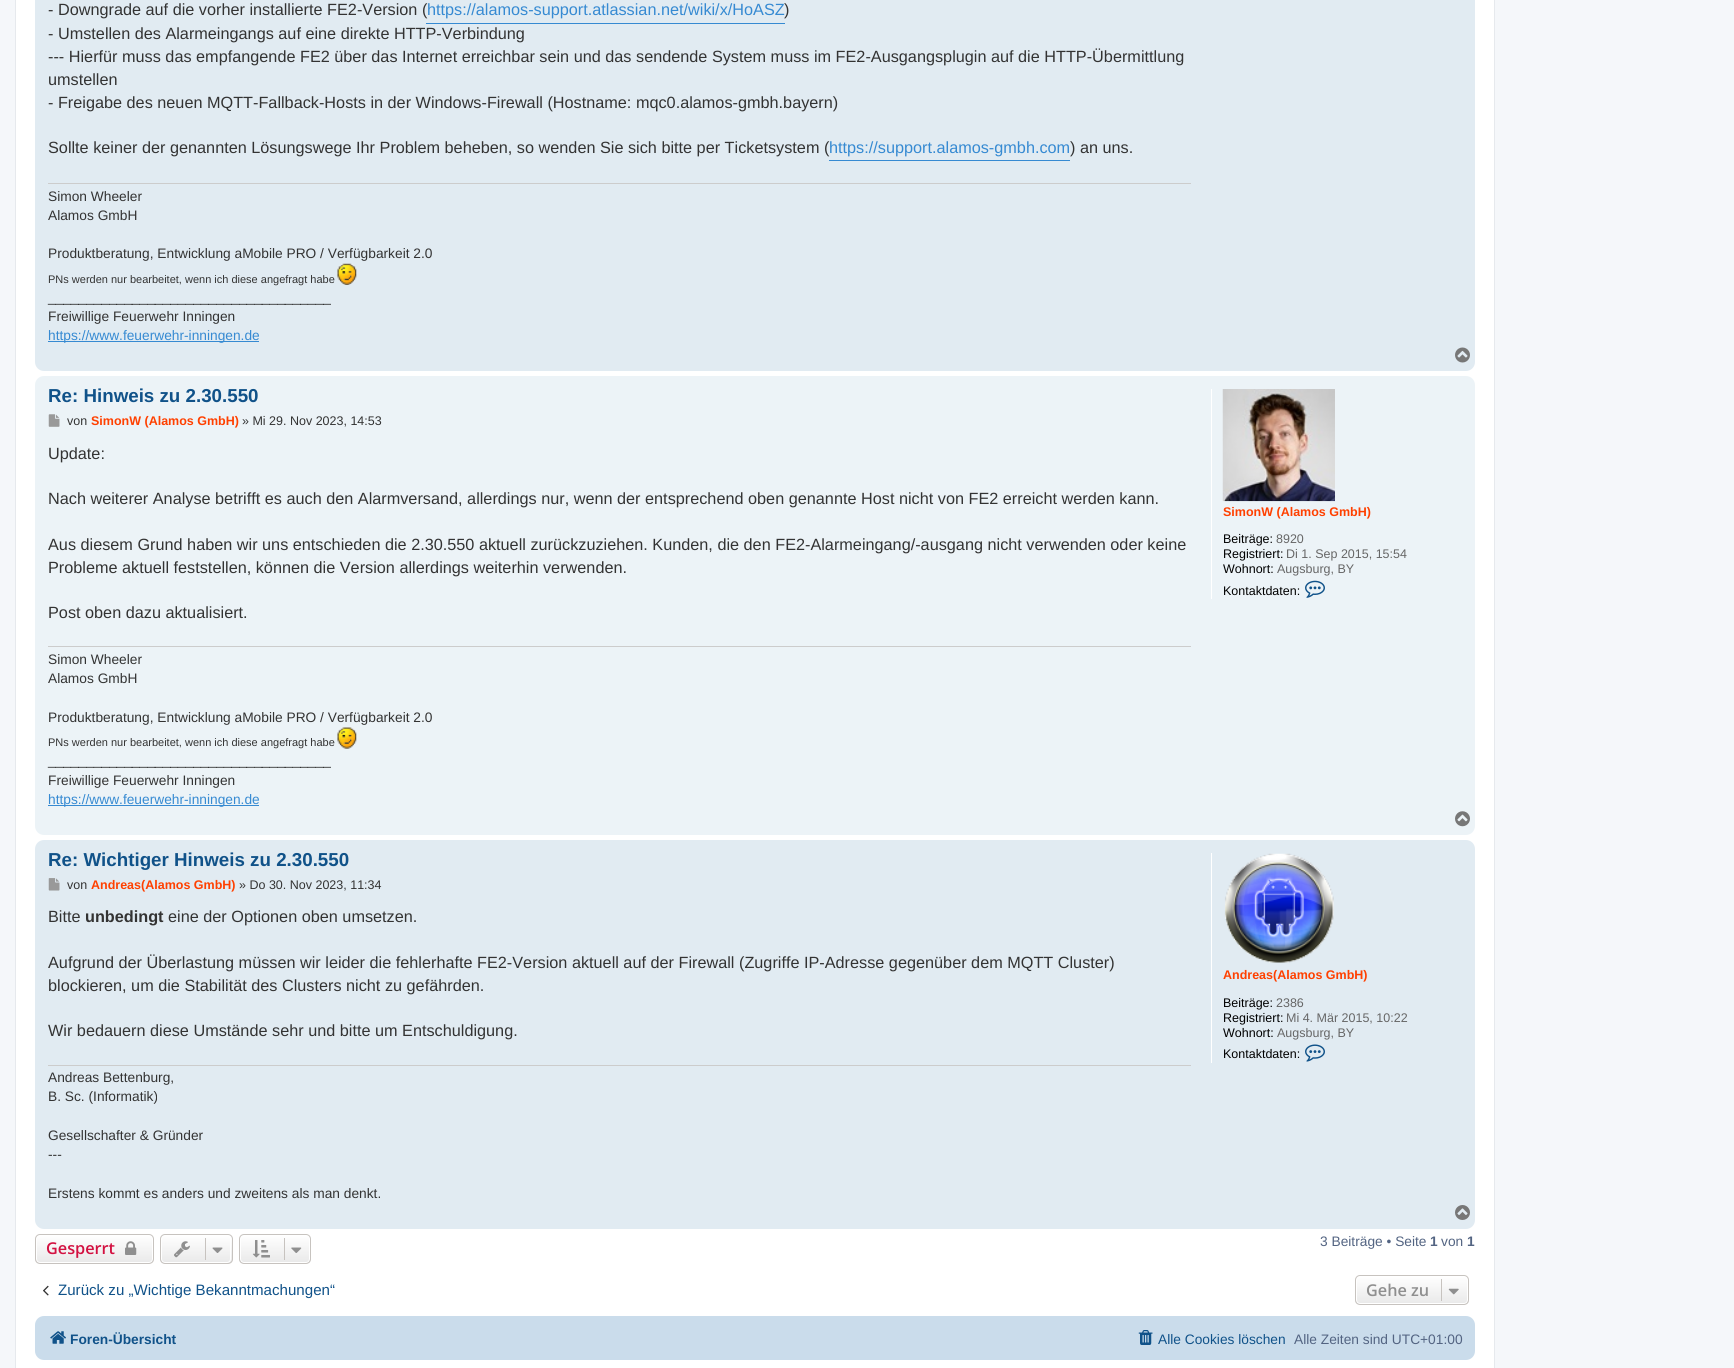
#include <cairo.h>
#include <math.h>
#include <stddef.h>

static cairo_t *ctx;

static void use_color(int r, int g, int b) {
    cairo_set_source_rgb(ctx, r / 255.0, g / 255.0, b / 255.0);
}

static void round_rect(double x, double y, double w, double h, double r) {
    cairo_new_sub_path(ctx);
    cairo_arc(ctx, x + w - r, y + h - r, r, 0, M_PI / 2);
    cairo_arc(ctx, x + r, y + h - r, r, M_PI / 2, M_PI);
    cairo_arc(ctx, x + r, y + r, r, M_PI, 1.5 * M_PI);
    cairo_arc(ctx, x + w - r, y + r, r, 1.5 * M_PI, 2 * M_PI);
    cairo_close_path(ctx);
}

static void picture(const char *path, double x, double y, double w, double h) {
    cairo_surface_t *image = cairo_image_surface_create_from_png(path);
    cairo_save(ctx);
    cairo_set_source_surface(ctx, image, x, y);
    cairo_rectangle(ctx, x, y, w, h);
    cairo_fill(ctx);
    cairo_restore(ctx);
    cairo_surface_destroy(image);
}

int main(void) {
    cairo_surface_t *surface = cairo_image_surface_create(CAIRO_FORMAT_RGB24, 1734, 1368);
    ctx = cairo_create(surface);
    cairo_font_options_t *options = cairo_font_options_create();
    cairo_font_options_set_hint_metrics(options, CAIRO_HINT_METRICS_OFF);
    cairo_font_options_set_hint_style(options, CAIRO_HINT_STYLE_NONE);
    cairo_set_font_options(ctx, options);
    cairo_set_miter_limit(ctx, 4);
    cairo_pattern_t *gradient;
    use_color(245, 247, 250);
    cairo_paint(ctx);
    use_color(255, 255, 255);
    cairo_rectangle(ctx, 15.5, -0.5, 1479, 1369);
    cairo_fill_preserve(ctx);
    use_color(230, 233, 237);
    cairo_set_line_width(ctx, 1);
    cairo_stroke(ctx);
    use_color(225, 235, 242);
    round_rect(35, -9, 1440, 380, 9);
    cairo_fill(ctx);
    cairo_select_font_face(ctx, "Liberation Sans", CAIRO_FONT_SLANT_NORMAL, CAIRO_FONT_WEIGHT_NORMAL);
    cairo_set_font_size(ctx, 16.25);
    use_color(51, 51, 51);
    cairo_move_to(ctx, 48, 15);
    cairo_show_text(ctx, "- Downgrade auf die vorher installierte FE2-Version (");
    use_color(54, 138, 210);
    cairo_rectangle(ctx, 426, 23, 359, 1);
    cairo_fill(ctx);
    cairo_move_to(ctx, 427, 15);
    cairo_show_text(ctx, "https://alamos-support.atlassian.net/wiki/x/HoASZ");
    use_color(51, 51, 51);
    cairo_move_to(ctx, 784, 15);
    cairo_show_text(ctx, ")");
    cairo_move_to(ctx, 48, 39);
    cairo_show_text(ctx, "- Umstellen des Alarmeingangs auf eine direkte HTTP-Verbindung");
    cairo_move_to(ctx, 48, 62);
    cairo_show_text(ctx, "--- Hierfür muss das empfangende FE2 über das Internet erreichbar sein und das sendende System muss im FE2-Ausgangsplugin auf die HTTP-Übermittlung");
    cairo_move_to(ctx, 48, 85);
    cairo_show_text(ctx, "umstellen");
    cairo_move_to(ctx, 48, 108);
    cairo_show_text(ctx, "- Freigabe des neuen MQTT-Fallback-Hosts in der Windows-Firewall (Hostname: mqc0.alamos-gmbh.bayern)");
    cairo_move_to(ctx, 48, 153);
    cairo_show_text(ctx, "Sollte keiner der genannten Lösungswege Ihr Problem beheben, so wenden Sie sich bitte per Ticketsystem (");
    use_color(54, 138, 210);
    cairo_rectangle(ctx, 829, 160, 241, 1);
    cairo_fill(ctx);
    cairo_move_to(ctx, 829, 153);
    cairo_show_text(ctx, "https://support.alamos-gmbh.com");
    use_color(51, 51, 51);
    cairo_move_to(ctx, 1070, 153);
    cairo_show_text(ctx, ") an uns.");
    use_color(204, 204, 204);
    cairo_rectangle(ctx, 48, 183, 1143, 1);
    cairo_fill(ctx);
    cairo_set_font_size(ctx, 13.75);
    use_color(51, 51, 51);
    cairo_move_to(ctx, 48, 201);
    cairo_show_text(ctx, "Simon Wheeler");
    cairo_move_to(ctx, 48, 220);
    cairo_show_text(ctx, "Alamos GmbH");
    cairo_move_to(ctx, 48, 258);
    cairo_show_text(ctx, "Produktberatung, Entwicklung aMobile PRO / Verfügbarkeit 2.0");
    cairo_set_font_size(ctx, 11);
    cairo_move_to(ctx, 48, 283);
    cairo_show_text(ctx, "PNs werden nur bearbeitet, wenn ich diese angefragt habe");
    picture("img1.png", 337, 263, 20, 22);
    cairo_set_font_size(ctx, 13.75);
    cairo_move_to(ctx, 48, 302);
    cairo_show_text(ctx, "_____________________________________");
    cairo_move_to(ctx, 48, 321);
    cairo_show_text(ctx, "Freiwillige Feuerwehr Inningen");
    use_color(54, 138, 210);
    cairo_rectangle(ctx, 48, 341, 211, 1);
    cairo_fill(ctx);
    cairo_move_to(ctx, 48, 340);
    cairo_show_text(ctx, "https://www.feuerwehr-inningen.de");
    picture("img2.png", 1455, 347, 15, 16);
    use_color(236, 243, 247);
    round_rect(35, 376, 1440, 459, 9);
    cairo_fill(ctx);
    cairo_select_font_face(ctx, "Liberation Sans", CAIRO_FONT_SLANT_NORMAL, CAIRO_FONT_WEIGHT_BOLD);
    cairo_set_font_size(ctx, 18.75);
    use_color(16, 82, 137);
    cairo_move_to(ctx, 48, 402);
    cairo_show_text(ctx, "Re: Hinweis zu 2.30.550");
    picture("img3.png", 48, 414, 12, 13);
    cairo_select_font_face(ctx, "Liberation Sans", CAIRO_FONT_SLANT_NORMAL, CAIRO_FONT_WEIGHT_NORMAL);
    cairo_set_font_size(ctx, 12.5);
    use_color(51, 51, 51);
    cairo_move_to(ctx, 67, 425);
    cairo_show_text(ctx, "von");
    cairo_select_font_face(ctx, "Liberation Sans", CAIRO_FONT_SLANT_NORMAL, CAIRO_FONT_WEIGHT_BOLD);
    use_color(255, 64, 0);
    cairo_move_to(ctx, 91, 425);
    cairo_show_text(ctx, "SimonW (Alamos GmbH)");
    cairo_select_font_face(ctx, "Liberation Sans", CAIRO_FONT_SLANT_NORMAL, CAIRO_FONT_WEIGHT_NORMAL);
    use_color(51, 51, 51);
    cairo_move_to(ctx, 242, 425);
    cairo_show_text(ctx, "» Mi 29. Nov 2023, 14:53");
    cairo_set_font_size(ctx, 16.25);
    cairo_move_to(ctx, 48, 459);
    cairo_show_text(ctx, "Update:");
    cairo_move_to(ctx, 48, 504);
    cairo_show_text(ctx, "Nach weiterer Analyse betrifft es auch den Alarmversand, allerdings nur, wenn der entsprechend oben genannte Host nicht von FE2 erreicht werden kann.");
    cairo_move_to(ctx, 48, 550);
    cairo_show_text(ctx, "Aus diesem Grund haben wir uns entschieden die 2.30.550 aktuell zurückzuziehen. Kunden, die den FE2-Alarmeingang/-ausgang nicht verwenden oder keine");
    cairo_move_to(ctx, 48, 573);
    cairo_show_text(ctx, "Probleme aktuell feststellen, können die Version allerdings weiterhin verwenden.");
    cairo_move_to(ctx, 48, 618);
    cairo_show_text(ctx, "Post oben dazu aktualisiert.");
    use_color(204, 204, 204);
    cairo_rectangle(ctx, 48, 646, 1143, 1);
    cairo_fill(ctx);
    cairo_set_font_size(ctx, 13.75);
    use_color(51, 51, 51);
    cairo_move_to(ctx, 48, 664);
    cairo_show_text(ctx, "Simon Wheeler");
    cairo_move_to(ctx, 48, 683);
    cairo_show_text(ctx, "Alamos GmbH");
    cairo_move_to(ctx, 48, 722);
    cairo_show_text(ctx, "Produktberatung, Entwicklung aMobile PRO / Verfügbarkeit 2.0");
    cairo_set_font_size(ctx, 11);
    cairo_move_to(ctx, 48, 746);
    cairo_show_text(ctx, "PNs werden nur bearbeitet, wenn ich diese angefragt habe");
    picture("img4.png", 337, 727, 20, 22);
    cairo_set_font_size(ctx, 13.75);
    cairo_move_to(ctx, 48, 765);
    cairo_show_text(ctx, "_____________________________________");
    cairo_move_to(ctx, 48, 785);
    cairo_show_text(ctx, "Freiwillige Feuerwehr Inningen");
    use_color(54, 138, 210);
    cairo_rectangle(ctx, 48, 805, 211, 1);
    cairo_fill(ctx);
    cairo_move_to(ctx, 48, 804);
    cairo_show_text(ctx, "https://www.feuerwehr-inningen.de");
    use_color(255, 255, 255);
    cairo_rectangle(ctx, 1211, 389, 1, 210);
    cairo_fill(ctx);
    picture("img5.png", 1222, 389, 113, 113);
    cairo_select_font_face(ctx, "Liberation Sans", CAIRO_FONT_SLANT_NORMAL, CAIRO_FONT_WEIGHT_BOLD);
    cairo_set_font_size(ctx, 12.5);
    use_color(255, 64, 0);
    cairo_move_to(ctx, 1223, 516);
    cairo_show_text(ctx, "SimonW (Alamos GmbH)");
    cairo_select_font_face(ctx, "Liberation Sans", CAIRO_FONT_SLANT_NORMAL, CAIRO_FONT_WEIGHT_NORMAL);
    use_color(0, 0, 0);
    cairo_move_to(ctx, 1223, 543);
    cairo_show_text(ctx, "Beiträge:");
    use_color(102, 102, 102);
    cairo_move_to(ctx, 1276, 543);
    cairo_show_text(ctx, "8920");
    use_color(0, 0, 0);
    cairo_move_to(ctx, 1223, 558);
    cairo_show_text(ctx, "Registriert:");
    use_color(102, 102, 102);
    cairo_move_to(ctx, 1286, 558);
    cairo_show_text(ctx, "Di 1. Sep 2015, 15:54");
    use_color(0, 0, 0);
    cairo_move_to(ctx, 1223, 573);
    cairo_show_text(ctx, "Wohnort:");
    use_color(102, 102, 102);
    cairo_move_to(ctx, 1277, 573);
    cairo_show_text(ctx, "Augsburg, BY");
    use_color(0, 0, 0);
    cairo_move_to(ctx, 1223, 595);
    cairo_show_text(ctx, "Kontaktdaten:");
    picture("img6.png", 1305, 580, 20, 18);
    picture("img7.png", 1455, 811, 15, 16);
    use_color(225, 235, 242);
    round_rect(35, 840, 1440, 389, 9);
    cairo_fill(ctx);
    cairo_select_font_face(ctx, "Liberation Sans", CAIRO_FONT_SLANT_NORMAL, CAIRO_FONT_WEIGHT_BOLD);
    cairo_set_font_size(ctx, 18.75);
    use_color(16, 82, 137);
    cairo_move_to(ctx, 48, 866);
    cairo_show_text(ctx, "Re: Wichtiger Hinweis zu 2.30.550");
    picture("img8.png", 48, 878, 12, 13);
    cairo_select_font_face(ctx, "Liberation Sans", CAIRO_FONT_SLANT_NORMAL, CAIRO_FONT_WEIGHT_NORMAL);
    cairo_set_font_size(ctx, 12.5);
    use_color(51, 51, 51);
    cairo_move_to(ctx, 67, 889);
    cairo_show_text(ctx, "von");
    cairo_select_font_face(ctx, "Liberation Sans", CAIRO_FONT_SLANT_NORMAL, CAIRO_FONT_WEIGHT_BOLD);
    use_color(255, 64, 0);
    cairo_move_to(ctx, 91, 889);
    cairo_show_text(ctx, "Andreas(Alamos GmbH)");
    cairo_select_font_face(ctx, "Liberation Sans", CAIRO_FONT_SLANT_NORMAL, CAIRO_FONT_WEIGHT_NORMAL);
    use_color(51, 51, 51);
    cairo_move_to(ctx, 239, 889);
    cairo_show_text(ctx, "» Do 30. Nov 2023, 11:34");
    cairo_set_font_size(ctx, 16.25);
    cairo_move_to(ctx, 48, 922);
    cairo_show_text(ctx, "Bitte");
    cairo_select_font_face(ctx, "Liberation Sans", CAIRO_FONT_SLANT_NORMAL, CAIRO_FONT_WEIGHT_BOLD);
    cairo_move_to(ctx, 85, 922);
    cairo_show_text(ctx, "unbedingt");
    cairo_select_font_face(ctx, "Liberation Sans", CAIRO_FONT_SLANT_NORMAL, CAIRO_FONT_WEIGHT_NORMAL);
    cairo_move_to(ctx, 168, 922);
    cairo_show_text(ctx, "eine der Optionen oben umsetzen.");
    cairo_move_to(ctx, 48, 968);
    cairo_show_text(ctx, "Aufgrund der Überlastung müssen wir leider die fehlerhafte FE2-Version aktuell auf der Firewall (Zugriffe IP-Adresse gegenüber dem MQTT Cluster)");
    cairo_move_to(ctx, 48, 991);
    cairo_show_text(ctx, "blockieren, um die Stabilität des Clusters nicht zu gefährden.");
    cairo_move_to(ctx, 48, 1036);
    cairo_show_text(ctx, "Wir bedauern diese Umstände sehr und bitte um Entschuldigung.");
    use_color(204, 204, 204);
    cairo_rectangle(ctx, 48, 1065, 1143, 1);
    cairo_fill(ctx);
    cairo_set_font_size(ctx, 13.75);
    use_color(51, 51, 51);
    cairo_move_to(ctx, 48, 1082);
    cairo_show_text(ctx, "Andreas Bettenburg,");
    cairo_move_to(ctx, 48, 1101);
    cairo_show_text(ctx, "B. Sc. (Informatik)");
    cairo_move_to(ctx, 48, 1140);
    cairo_show_text(ctx, "Gesellschafter & Gründer");
    cairo_move_to(ctx, 48, 1159);
    cairo_show_text(ctx, "---");
    cairo_move_to(ctx, 48, 1198);
    cairo_show_text(ctx, "Erstens kommt es anders und zweitens als man denkt.");
    use_color(255, 255, 255);
    cairo_rectangle(ctx, 1211, 853, 1, 210);
    cairo_fill(ctx);
    picture("img9.png", 1224, 853, 110, 110);
    cairo_select_font_face(ctx, "Liberation Sans", CAIRO_FONT_SLANT_NORMAL, CAIRO_FONT_WEIGHT_BOLD);
    cairo_set_font_size(ctx, 12.5);
    use_color(255, 64, 0);
    cairo_move_to(ctx, 1223, 979);
    cairo_show_text(ctx, "Andreas(Alamos GmbH)");
    cairo_select_font_face(ctx, "Liberation Sans", CAIRO_FONT_SLANT_NORMAL, CAIRO_FONT_WEIGHT_NORMAL);
    use_color(0, 0, 0);
    cairo_move_to(ctx, 1223, 1007);
    cairo_show_text(ctx, "Beiträge:");
    use_color(102, 102, 102);
    cairo_move_to(ctx, 1276, 1007);
    cairo_show_text(ctx, "2386");
    use_color(0, 0, 0);
    cairo_move_to(ctx, 1223, 1022);
    cairo_show_text(ctx, "Registriert:");
    use_color(102, 102, 102);
    cairo_move_to(ctx, 1286, 1022);
    cairo_show_text(ctx, "Mi 4. Mär 2015, 10:22");
    use_color(0, 0, 0);
    cairo_move_to(ctx, 1223, 1037);
    cairo_show_text(ctx, "Wohnort:");
    use_color(102, 102, 102);
    cairo_move_to(ctx, 1277, 1037);
    cairo_show_text(ctx, "Augsburg, BY");
    use_color(0, 0, 0);
    cairo_move_to(ctx, 1223, 1058);
    cairo_show_text(ctx, "Kontaktdaten:");
    picture("img10.png", 1305, 1044, 20, 18);
    picture("img11.png", 1455, 1205, 15, 15);
    cairo_save(ctx);
    round_rect(35, 1234, 119, 30, 5);
    cairo_clip(ctx);
    gradient = cairo_pattern_create_linear(94, 1235, 94, 1263);
    cairo_pattern_add_color_stop_rgba(gradient, 0, 1, 1, 1, 1);
    cairo_pattern_add_color_stop_rgba(gradient, 1, 0.914, 0.914, 0.914, 1);
    cairo_set_source(ctx, gradient);
    cairo_pattern_destroy(gradient);
    cairo_rectangle(ctx, 35, 1235, 119, 28);
    cairo_fill(ctx);
    cairo_restore(ctx);
    round_rect(36.5, 1235.5, 116, 27, 3.5);
    use_color(255, 255, 255);
    cairo_stroke(ctx);
    round_rect(35.5, 1234.5, 118, 29, 4.5);
    use_color(199, 195, 191);
    cairo_stroke(ctx);
    cairo_select_font_face(ctx, "Open Sans SemiBold", CAIRO_FONT_SLANT_NORMAL, CAIRO_FONT_WEIGHT_NORMAL);
    cairo_set_font_size(ctx, 16.25);
    use_color(211, 17, 65);
    cairo_move_to(ctx, 46, 1254);
    cairo_show_text(ctx, "Gesperrt");
    picture("img12.png", 125, 1241, 12, 14);
    cairo_save(ctx);
    round_rect(160, 1234, 73, 30, 5);
    cairo_clip(ctx);
    gradient = cairo_pattern_create_linear(196, 1235, 196, 1263);
    cairo_pattern_add_color_stop_rgba(gradient, 0, 1, 1, 1, 1);
    cairo_pattern_add_color_stop_rgba(gradient, 1, 0.914, 0.914, 0.914, 1);
    cairo_set_source(ctx, gradient);
    cairo_pattern_destroy(gradient);
    cairo_rectangle(ctx, 160, 1235, 73, 28);
    cairo_fill(ctx);
    cairo_restore(ctx);
    round_rect(161.5, 1235.5, 69, 27, 3.5);
    use_color(255, 255, 255);
    cairo_stroke(ctx);
    round_rect(160.5, 1234.5, 72, 29, 4.5);
    use_color(199, 195, 191);
    cairo_stroke(ctx);
    picture("img13.png", 174, 1241, 16, 17);
    cairo_rectangle(ctx, 205, 1238, 1, 22);
    cairo_fill(ctx);
    picture("img14.png", 212, 1247, 11, 6);
    cairo_save(ctx);
    round_rect(239, 1234, 72, 30, 5);
    cairo_clip(ctx);
    gradient = cairo_pattern_create_linear(275, 1235, 275, 1263);
    cairo_pattern_add_color_stop_rgba(gradient, 0, 1, 1, 1, 1);
    cairo_pattern_add_color_stop_rgba(gradient, 1, 0.914, 0.914, 0.914, 1);
    cairo_set_source(ctx, gradient);
    cairo_pattern_destroy(gradient);
    cairo_rectangle(ctx, 239, 1235, 72, 28);
    cairo_fill(ctx);
    cairo_restore(ctx);
    round_rect(240.5, 1235.5, 69, 27, 3.5);
    use_color(255, 255, 255);
    cairo_stroke(ctx);
    round_rect(239.5, 1234.5, 71, 29, 4.5);
    use_color(199, 195, 191);
    cairo_stroke(ctx);
    picture("img15.png", 252, 1240, 18, 18);
    cairo_rectangle(ctx, 284, 1238, 1, 22);
    cairo_fill(ctx);
    picture("img16.png", 291, 1247, 11, 6);
    cairo_select_font_face(ctx, "Liberation Sans", CAIRO_FONT_SLANT_NORMAL, CAIRO_FONT_WEIGHT_NORMAL);
    cairo_set_font_size(ctx, 13.75);
    use_color(83, 100, 130);
    cairo_move_to(ctx, 1320, 1246);
    cairo_show_text(ctx, "3 Beiträge • Seite");
    cairo_select_font_face(ctx, "Liberation Sans", CAIRO_FONT_SLANT_NORMAL, CAIRO_FONT_WEIGHT_BOLD);
    cairo_move_to(ctx, 1430, 1246);
    cairo_show_text(ctx, "1");
    cairo_select_font_face(ctx, "Liberation Sans", CAIRO_FONT_SLANT_NORMAL, CAIRO_FONT_WEIGHT_NORMAL);
    cairo_move_to(ctx, 1441, 1246);
    cairo_show_text(ctx, "von");
    cairo_select_font_face(ctx, "Liberation Sans", CAIRO_FONT_SLANT_NORMAL, CAIRO_FONT_WEIGHT_BOLD);
    cairo_move_to(ctx, 1467, 1246);
    cairo_show_text(ctx, "1");
    picture("img17.png", 43, 1285, 6, 11);
    cairo_select_font_face(ctx, "Liberation Sans", CAIRO_FONT_SLANT_NORMAL, CAIRO_FONT_WEIGHT_NORMAL);
    cairo_set_font_size(ctx, 15.1);
    use_color(16, 82, 137);
    cairo_move_to(ctx, 58, 1295);
    cairo_show_text(ctx, "Zurück zu „Wichtige Bekanntmachungen“");
    cairo_save(ctx);
    round_rect(1355, 1275, 114, 30, 5);
    cairo_clip(ctx);
    gradient = cairo_pattern_create_linear(1412, 1276, 1412, 1304);
    cairo_pattern_add_color_stop_rgba(gradient, 0, 1, 1, 1, 1);
    cairo_pattern_add_color_stop_rgba(gradient, 1, 0.914, 0.914, 0.914, 1);
    cairo_set_source(ctx, gradient);
    cairo_pattern_destroy(gradient);
    cairo_rectangle(ctx, 1355, 1276, 114, 28);
    cairo_fill(ctx);
    cairo_restore(ctx);
    round_rect(1356.5, 1276.5, 111, 27, 3.5);
    use_color(255, 255, 255);
    cairo_stroke(ctx);
    round_rect(1355.5, 1275.5, 113, 29, 4.5);
    use_color(199, 195, 191);
    cairo_stroke(ctx);
    cairo_select_font_face(ctx, "Open Sans SemiBold", CAIRO_FONT_SLANT_NORMAL, CAIRO_FONT_WEIGHT_NORMAL);
    cairo_set_font_size(ctx, 16.25);
    use_color(143, 143, 143);
    cairo_move_to(ctx, 1366, 1296);
    cairo_show_text(ctx, "Gehe zu");
    use_color(199, 195, 191);
    cairo_rectangle(ctx, 1441, 1279, 1, 22);
    cairo_fill(ctx);
    picture("img18.png", 1448, 1288, 11, 7);
    use_color(202, 220, 235);
    round_rect(35, 1316, 1440, 44, 9);
    cairo_fill(ctx);
    picture("img19.png", 50, 1331, 16, 13);
    cairo_select_font_face(ctx, "Liberation Sans", CAIRO_FONT_SLANT_NORMAL, CAIRO_FONT_WEIGHT_BOLD);
    cairo_set_font_size(ctx, 13.75);
    use_color(16, 82, 137);
    cairo_move_to(ctx, 70, 1344);
    cairo_show_text(ctx, "Foren-Übersicht");
    picture("img20.png", 1138, 1330, 15, 15);
    cairo_select_font_face(ctx, "Liberation Sans", CAIRO_FONT_SLANT_NORMAL, CAIRO_FONT_WEIGHT_NORMAL);
    cairo_move_to(ctx, 1158, 1344);
    cairo_show_text(ctx, "Alle Cookies löschen");
    use_color(83, 100, 130);
    cairo_move_to(ctx, 1294, 1344);
    cairo_show_text(ctx, "Alle Zeiten sind UTC+01:00");
    cairo_surface_write_to_png(surface, "result.png");
    cairo_font_options_destroy(options);
    cairo_destroy(ctx);
    cairo_surface_destroy(surface);
    return 0;
}
